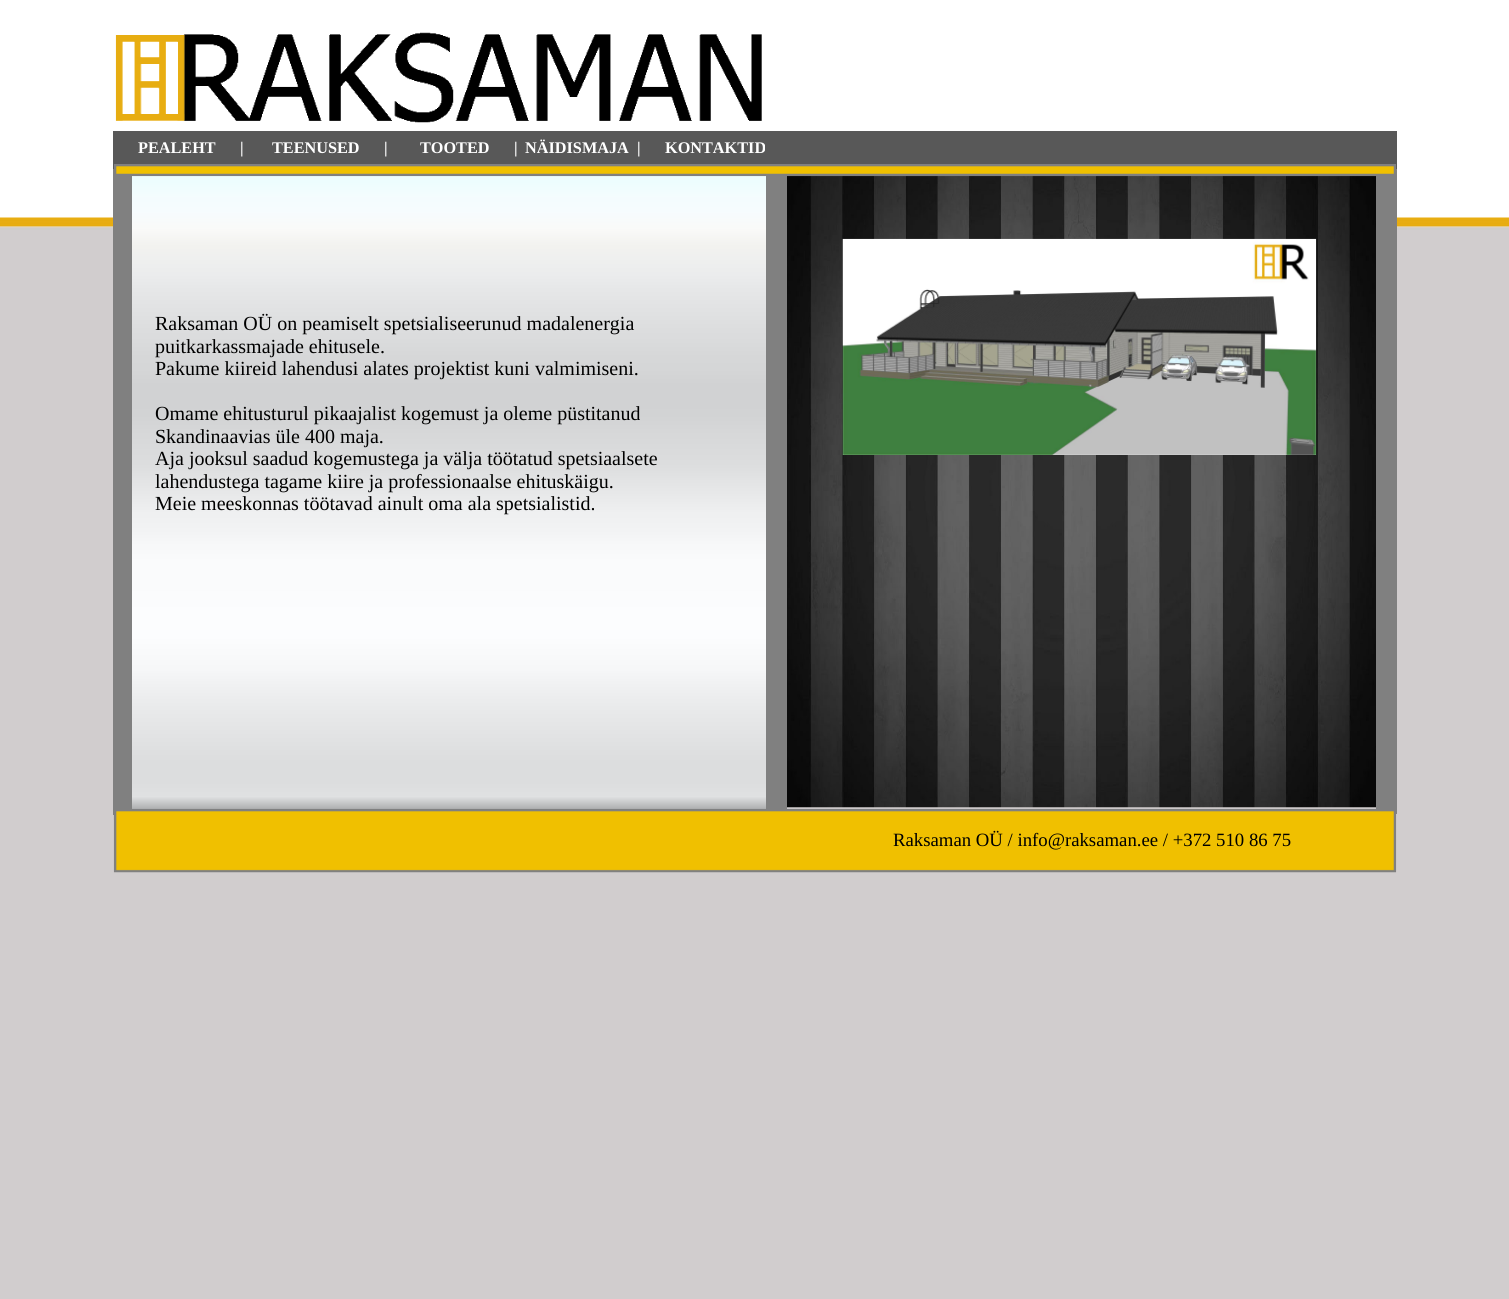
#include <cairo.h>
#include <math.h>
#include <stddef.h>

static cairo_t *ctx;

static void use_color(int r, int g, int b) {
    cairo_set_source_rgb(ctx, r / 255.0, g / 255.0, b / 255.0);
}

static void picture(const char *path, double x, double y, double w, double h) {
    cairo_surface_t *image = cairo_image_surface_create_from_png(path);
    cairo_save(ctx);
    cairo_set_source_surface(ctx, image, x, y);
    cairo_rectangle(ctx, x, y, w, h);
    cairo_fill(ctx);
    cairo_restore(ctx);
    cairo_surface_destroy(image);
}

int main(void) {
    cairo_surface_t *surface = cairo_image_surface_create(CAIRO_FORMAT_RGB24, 1509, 1299);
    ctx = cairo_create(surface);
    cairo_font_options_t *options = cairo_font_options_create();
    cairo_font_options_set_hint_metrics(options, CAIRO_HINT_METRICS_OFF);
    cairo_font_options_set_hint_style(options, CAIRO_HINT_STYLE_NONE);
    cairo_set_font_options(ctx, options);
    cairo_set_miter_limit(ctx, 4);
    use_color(255, 255, 255);
    cairo_paint(ctx);
    picture("img1.png", 0, 217, 1509, 1082);
    picture("img2.png", 115, 32, 647, 91);
    use_color(88, 88, 88);
    cairo_rectangle(ctx, 113, 131, 1284, 38);
    cairo_fill(ctx);
    cairo_select_font_face(ctx, "Liberation Serif", CAIRO_FONT_SLANT_NORMAL, CAIRO_FONT_WEIGHT_BOLD);
    cairo_set_font_size(ctx, 16.25);
    use_color(255, 255, 255);
    cairo_move_to(ctx, 138, 153);
    cairo_show_text(ctx, "PEALEHT");
    cairo_move_to(ctx, 240, 153);
    cairo_show_text(ctx, "|");
    cairo_move_to(ctx, 272, 153);
    cairo_show_text(ctx, "TEENUSED");
    cairo_move_to(ctx, 384, 153);
    cairo_show_text(ctx, "|");
    cairo_move_to(ctx, 420, 153);
    cairo_show_text(ctx, "TOOTED");
    cairo_move_to(ctx, 514, 153);
    cairo_show_text(ctx, "|");
    cairo_move_to(ctx, 525, 153);
    cairo_show_text(ctx, "NÄIDISMAJA");
    cairo_move_to(ctx, 637, 153);
    cairo_show_text(ctx, "|");
    cairo_move_to(ctx, 665, 153);
    cairo_show_text(ctx, "KONTAKTID");
    picture("img4.png", 113, 176, 653, 644);
    use_color(128, 128, 128);
    cairo_rectangle(ctx, 113, 169, 19, 646);
    cairo_fill(ctx);
    cairo_rectangle(ctx, 1376, 169, 21, 645);
    cairo_fill(ctx);
    cairo_rectangle(ctx, 766, 176, 21, 633);
    cairo_fill(ctx);
    picture("img5.png", 787, 176, 589, 632);
    picture("img3.png", 114, 164, 1282, 13);
    cairo_select_font_face(ctx, "Liberation Serif", CAIRO_FONT_SLANT_NORMAL, CAIRO_FONT_WEIGHT_NORMAL);
    cairo_set_font_size(ctx, 20);
    use_color(0, 0, 0);
    cairo_move_to(ctx, 155, 330);
    cairo_show_text(ctx, "Raksaman OÜ on peamiselt spetsialiseerunud madalenergia");
    cairo_move_to(ctx, 155, 353);
    cairo_show_text(ctx, "puitkarkassmajade ehitusele.");
    cairo_move_to(ctx, 155, 375);
    cairo_show_text(ctx, "Pakume kiireid lahendusi alates projektist kuni valmimiseni.");
    cairo_move_to(ctx, 155, 420);
    cairo_show_text(ctx, "Omame ehitusturul pikaajalist kogemust ja oleme püstitanud");
    cairo_move_to(ctx, 155, 443);
    cairo_show_text(ctx, "Skandinaavias üle 400 maja.");
    cairo_move_to(ctx, 155, 465);
    cairo_show_text(ctx, "Aja jooksul saadud kogemustega ja välja töötatud spetsiaalsete");
    cairo_move_to(ctx, 155, 488);
    cairo_show_text(ctx, "lahendustega tagame kiire ja professionaalse ehituskäigu.");
    cairo_move_to(ctx, 155, 510);
    cairo_show_text(ctx, "Meie meeskonnas töötavad ainult oma ala spetsialistid.");
    picture("img6.png", 842, 238, 475, 217);
    picture("img7.png", 113, 808, 1284, 65);
    cairo_set_font_size(ctx, 18.75);
    cairo_move_to(ctx, 893, 846);
    cairo_show_text(ctx, "Raksaman OÜ / info@raksaman.ee / +372 510 86 75");
    cairo_surface_write_to_png(surface, "result.png");
    cairo_font_options_destroy(options);
    cairo_destroy(ctx);
    cairo_surface_destroy(surface);
    return 0;
}
